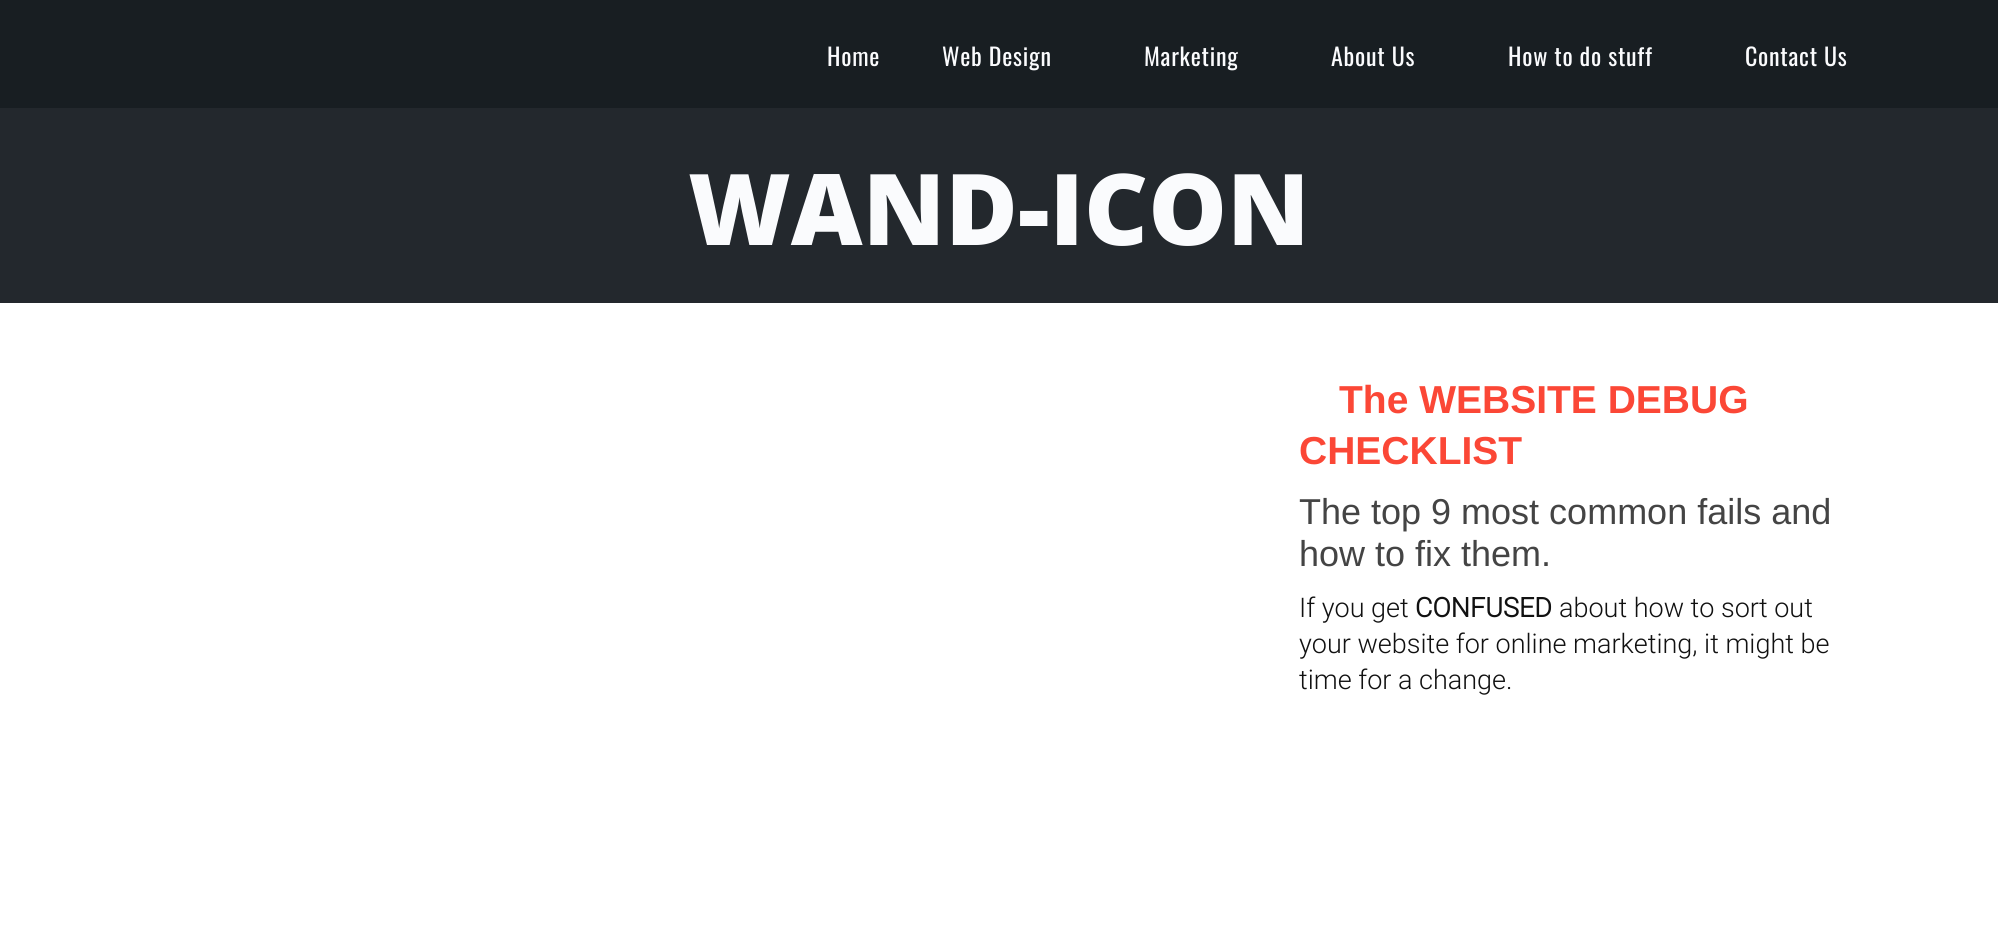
#include <cairo.h>
#include <math.h>
#include <stddef.h>

static cairo_t *ctx;

static void use_color(int r, int g, int b) {
    cairo_set_source_rgb(ctx, r / 255.0, g / 255.0, b / 255.0);
}

static void spaced_text(double x, double y, const char *s, double letter, double word) {
    cairo_move_to(ctx, x, y);
    while (*s) {
        char ch[5] = {0};
        int n = 0;
        do ch[n++] = *s++; while ((*s & 0xC0) == 0x80);
        cairo_show_text(ctx, ch);
        cairo_rel_move_to(ctx, letter + word * (*ch == ' '), 0);
    }
}

int main(void) {
    cairo_surface_t *surface = cairo_image_surface_create(CAIRO_FORMAT_RGB24, 1998, 949);
    ctx = cairo_create(surface);
    cairo_font_options_t *options = cairo_font_options_create();
    cairo_font_options_set_hint_metrics(options, CAIRO_HINT_METRICS_OFF);
    cairo_font_options_set_hint_style(options, CAIRO_HINT_STYLE_NONE);
    cairo_set_font_options(ctx, options);
    cairo_set_miter_limit(ctx, 4);
    use_color(255, 255, 255);
    cairo_paint(ctx);
    use_color(24, 30, 34);
    cairo_rectangle(ctx, 0, 0, 1998, 108);
    cairo_fill(ctx);
    cairo_select_font_face(ctx, "Oswald", CAIRO_FONT_SLANT_NORMAL, CAIRO_FONT_WEIGHT_NORMAL);
    cairo_set_font_size(ctx, 24);
    use_color(250, 251, 253);
    spaced_text(827, 66, "Home", 0.75, 0);
    spaced_text(942, 66, "Web Design", 0.75, 0);
    spaced_text(1144, 66, "Marketing", 0.75, 0);
    spaced_text(1331, 66, "About Us", 0.75, 0);
    spaced_text(1508, 66, "How to do stuff", 0.75, 0);
    spaced_text(1745, 66, "Contact Us", 0.75, 0);
    use_color(35, 40, 45);
    cairo_rectangle(ctx, 0, 108, 1998, 195);
    cairo_fill(ctx);
    cairo_select_font_face(ctx, "Open Sans ExtraBold", CAIRO_FONT_SLANT_NORMAL, CAIRO_FONT_WEIGHT_NORMAL);
    cairo_set_font_size(ctx, 99);
    use_color(250, 251, 253);
    cairo_move_to(ctx, 688, 245);
    cairo_show_text(ctx, "WAND-ICON");
    cairo_select_font_face(ctx, "Liberation Sans", CAIRO_FONT_SLANT_NORMAL, CAIRO_FONT_WEIGHT_BOLD);
    cairo_set_font_size(ctx, 39);
    use_color(251, 71, 54);
    cairo_move_to(ctx, 1339, 413);
    cairo_show_text(ctx, "The WEBSITE DEBUG");
    cairo_move_to(ctx, 1299, 464);
    cairo_show_text(ctx, "CHECKLIST");
    cairo_select_font_face(ctx, "Liberation Sans", CAIRO_FONT_SLANT_NORMAL, CAIRO_FONT_WEIGHT_NORMAL);
    cairo_set_font_size(ctx, 36);
    use_color(68, 68, 68);
    cairo_move_to(ctx, 1299, 524);
    cairo_show_text(ctx, "The top 9 most common fails and");
    cairo_move_to(ctx, 1299, 566);
    cairo_show_text(ctx, "how to fix them.");
    cairo_select_font_face(ctx, "Roboto Light", CAIRO_FONT_SLANT_NORMAL, CAIRO_FONT_WEIGHT_NORMAL);
    cairo_set_font_size(ctx, 27);
    use_color(17, 17, 17);
    cairo_move_to(ctx, 1299, 617);
    cairo_show_text(ctx, "If you get");
    cairo_select_font_face(ctx, "Roboto", CAIRO_FONT_SLANT_NORMAL, CAIRO_FONT_WEIGHT_BOLD);
    cairo_move_to(ctx, 1415, 617);
    cairo_show_text(ctx, "CONFUSED");
    cairo_select_font_face(ctx, "Roboto Light", CAIRO_FONT_SLANT_NORMAL, CAIRO_FONT_WEIGHT_NORMAL);
    cairo_move_to(ctx, 1559, 617);
    cairo_show_text(ctx, "about how to sort out");
    cairo_move_to(ctx, 1299, 653);
    cairo_show_text(ctx, "your website for online marketing, it might be");
    cairo_move_to(ctx, 1299, 689);
    cairo_show_text(ctx, "time for a change.");
    cairo_surface_write_to_png(surface, "result.png");
    cairo_font_options_destroy(options);
    cairo_destroy(ctx);
    cairo_surface_destroy(surface);
    return 0;
}
